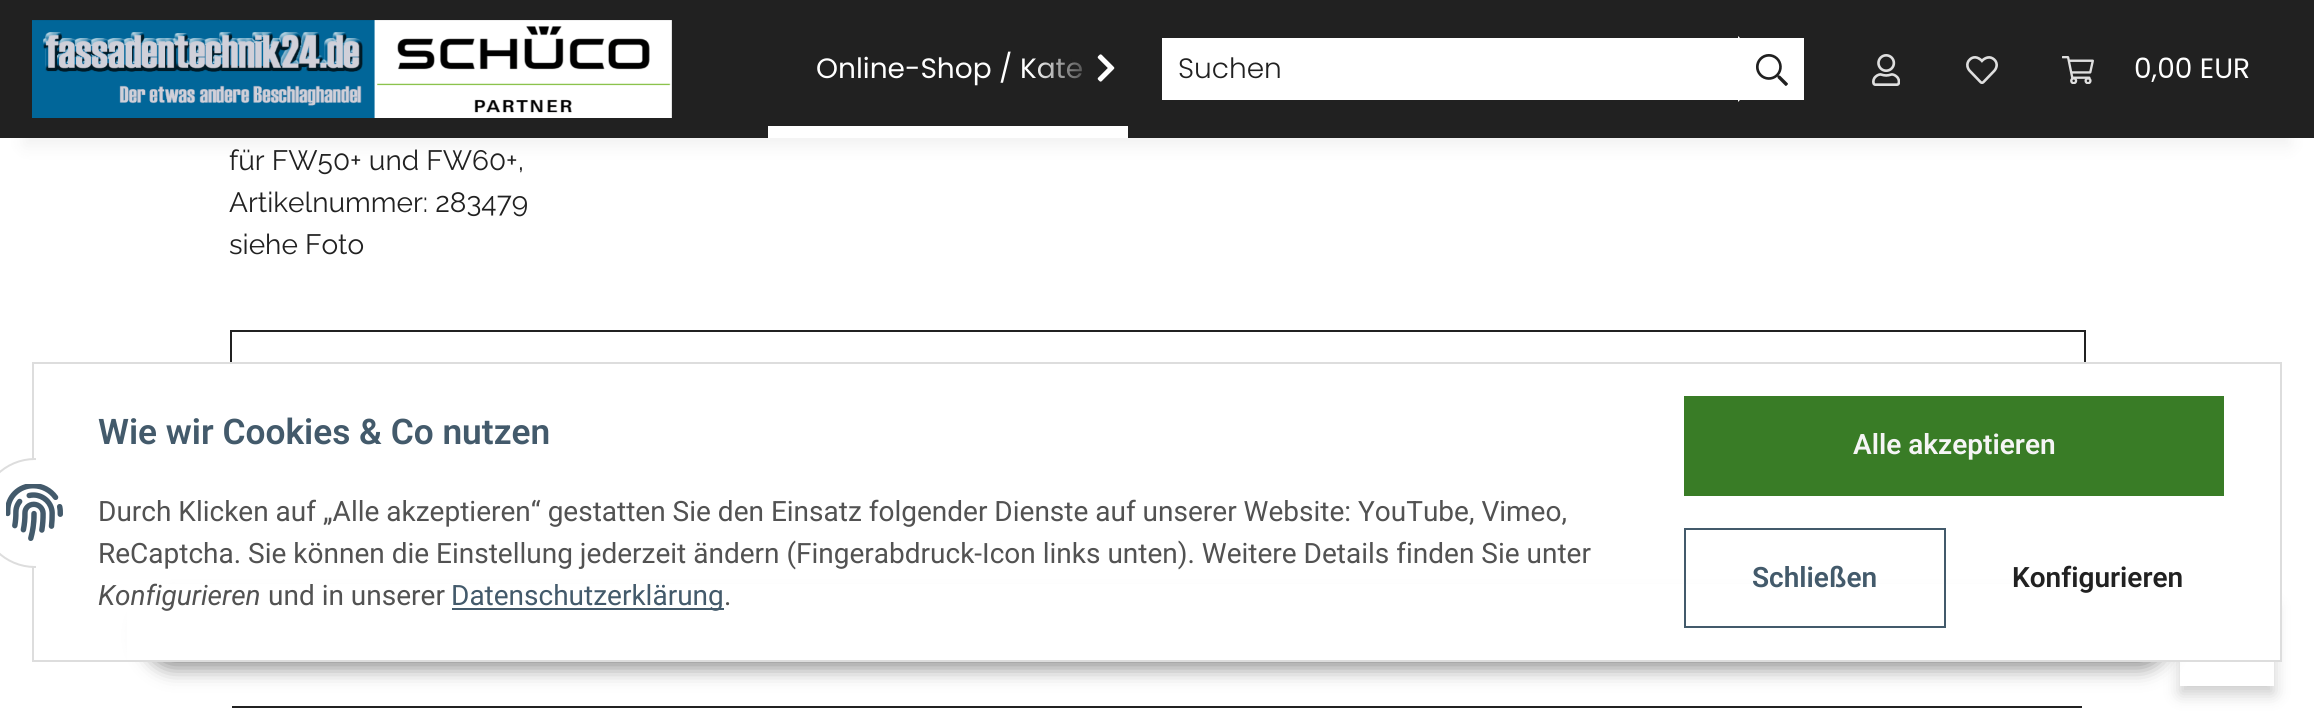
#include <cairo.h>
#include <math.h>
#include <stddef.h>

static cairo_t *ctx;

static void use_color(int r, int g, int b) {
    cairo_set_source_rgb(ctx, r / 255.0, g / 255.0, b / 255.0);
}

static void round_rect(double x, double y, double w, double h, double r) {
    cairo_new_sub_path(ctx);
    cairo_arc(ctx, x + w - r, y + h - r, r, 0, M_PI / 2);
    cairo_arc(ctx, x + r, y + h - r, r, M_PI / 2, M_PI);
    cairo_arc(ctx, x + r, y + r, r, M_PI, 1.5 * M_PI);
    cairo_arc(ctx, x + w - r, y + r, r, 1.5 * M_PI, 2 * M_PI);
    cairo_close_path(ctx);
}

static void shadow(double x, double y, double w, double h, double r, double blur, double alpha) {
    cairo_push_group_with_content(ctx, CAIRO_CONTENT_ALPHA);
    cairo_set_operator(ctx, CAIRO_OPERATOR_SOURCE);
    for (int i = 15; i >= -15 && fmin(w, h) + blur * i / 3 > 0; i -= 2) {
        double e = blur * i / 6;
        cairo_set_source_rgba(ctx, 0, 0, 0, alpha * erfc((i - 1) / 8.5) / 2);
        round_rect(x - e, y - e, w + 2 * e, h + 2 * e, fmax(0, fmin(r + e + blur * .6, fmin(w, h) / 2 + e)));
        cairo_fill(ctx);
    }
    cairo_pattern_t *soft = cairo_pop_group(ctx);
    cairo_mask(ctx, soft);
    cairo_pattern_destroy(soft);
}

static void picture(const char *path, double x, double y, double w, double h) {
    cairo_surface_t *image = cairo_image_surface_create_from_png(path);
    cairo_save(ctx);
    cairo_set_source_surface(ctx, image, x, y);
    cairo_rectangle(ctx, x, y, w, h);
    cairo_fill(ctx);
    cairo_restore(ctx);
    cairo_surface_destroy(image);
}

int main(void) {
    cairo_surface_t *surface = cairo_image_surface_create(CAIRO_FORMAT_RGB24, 2314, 726);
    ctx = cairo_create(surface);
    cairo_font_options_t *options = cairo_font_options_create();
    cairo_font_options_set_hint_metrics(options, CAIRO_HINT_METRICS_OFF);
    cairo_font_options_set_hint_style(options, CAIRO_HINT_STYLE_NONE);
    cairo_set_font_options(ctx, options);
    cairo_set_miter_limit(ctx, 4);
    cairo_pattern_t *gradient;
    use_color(255, 255, 255);
    cairo_paint(ctx);
    use_color(0, 0, 0);
    shadow(24, 56, 2266, 90, 0, 9, 0.06);
    use_color(33, 33, 33);
    cairo_rectangle(ctx, 0, 0, 2314, 138);
    cairo_fill(ctx);
    picture("img1.png", 32, 20, 640, 98);
    cairo_select_font_face(ctx, "Poppins", CAIRO_FONT_SLANT_NORMAL, CAIRO_FONT_WEIGHT_NORMAL);
    cairo_set_font_size(ctx, 28);
    use_color(255, 255, 255);
    cairo_move_to(ctx, 816, 78);
    cairo_show_text(ctx, "Online-Shop / Kate");
    cairo_rectangle(ctx, 768, 126, 360, 12);
    cairo_fill(ctx);
    gradient = cairo_pattern_create_linear(1032, 70, 1128, 70);
    cairo_pattern_add_color_stop_rgba(gradient, 0, 0.129, 0.129, 0.129, 0.01);
    cairo_pattern_add_color_stop_rgba(gradient, 0.7, 0.129, 0.129, 0.129, 1);
    cairo_set_source(ctx, gradient);
    cairo_pattern_destroy(gradient);
    cairo_rectangle(ctx, 1033, 58, 49, 21);
    cairo_fill(ctx);
    picture("img2.png", 1097, 54, 18, 28);
    use_color(255, 255, 255);
    cairo_rectangle(ctx, 1162, 38, 576, 62);
    cairo_fill(ctx);
    cairo_select_font_face(ctx, "Poppins Light", CAIRO_FONT_SLANT_NORMAL, CAIRO_FONT_WEIGHT_NORMAL);
    use_color(33, 33, 33);
    cairo_move_to(ctx, 1178, 78);
    cairo_show_text(ctx, "Suchen");
    use_color(255, 255, 255);
    cairo_rectangle(ctx, 1738, 36, 66, 66);
    cairo_fill(ctx);
    use_color(33, 33, 33);
    cairo_new_path(ctx);
    cairo_move_to(ctx, 1738, 36);
    cairo_line_to(ctx, 1806, 36);
    cairo_line_to(ctx, 1804, 38);
    cairo_line_to(ctx, 1740, 38);
    cairo_close_path(ctx);
    cairo_fill(ctx);
    cairo_new_path(ctx);
    cairo_move_to(ctx, 1806, 102);
    cairo_line_to(ctx, 1738, 102);
    cairo_line_to(ctx, 1740, 100);
    cairo_line_to(ctx, 1804, 100);
    cairo_close_path(ctx);
    cairo_fill(ctx);
    picture("img3.png", 1756, 54, 32, 32);
    picture("img4.png", 1872, 54, 28, 32);
    picture("img5.png", 1966, 56, 32, 28);
    picture("img6.png", 2062, 56, 32, 28);
    cairo_select_font_face(ctx, "Poppins", CAIRO_FONT_SLANT_NORMAL, CAIRO_FONT_WEIGHT_NORMAL);
    use_color(255, 255, 255);
    cairo_move_to(ctx, 2134, 78);
    cairo_show_text(ctx, "0,00 EUR");
    cairo_select_font_face(ctx, "Raleway", CAIRO_FONT_SLANT_NORMAL, CAIRO_FONT_WEIGHT_NORMAL);
    use_color(33, 33, 33);
    cairo_move_to(ctx, 229, 170);
    cairo_show_text(ctx, "für FW50+ und FW60+,");
    cairo_move_to(ctx, 229, 212);
    cairo_show_text(ctx, "Artikelnummer: 283479");
    cairo_move_to(ctx, 229, 254);
    cairo_show_text(ctx, "siehe Foto");
    cairo_rectangle(ctx, 230, 330, 1856, 2);
    cairo_fill(ctx);
    cairo_rectangle(ctx, 2084, 330, 2, 32);
    cairo_fill(ctx);
    cairo_rectangle(ctx, 230, 330, 2, 32);
    cairo_fill(ctx);
    use_color(0, 0, 0);
    shadow(146, 604, 2022, 64, 32, 10, 0.45);
    cairo_save(ctx);
    cairo_set_fill_rule(ctx, CAIRO_FILL_RULE_EVEN_ODD);
    cairo_new_path(ctx);
    cairo_move_to(ctx, 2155, 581);
    cairo_line_to(ctx, 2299, 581);
    cairo_line_to(ctx, 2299, 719);
    cairo_line_to(ctx, 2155, 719);
    cairo_close_path(ctx);
    cairo_move_to(ctx, 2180, 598);
    cairo_line_to(ctx, 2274, 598);
    cairo_line_to(ctx, 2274, 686);
    cairo_line_to(ctx, 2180, 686);
    cairo_close_path(ctx);
    cairo_clip(ctx);
    shadow(2180, 606, 94, 88, 0, 8, 0.2);
    cairo_restore(ctx);
    use_color(255, 255, 255);
    cairo_rectangle(ctx, 127, 584, 2153, 76);
    cairo_fill(ctx);
    cairo_rectangle(ctx, 33, 363, 2248, 298);
    use_color(221, 221, 221);
    cairo_stroke(ctx);
    use_color(255, 255, 255);
    cairo_arc(ctx, 35, 513, 54, 0, 2 * M_PI);
    cairo_fill_preserve(ctx);
    use_color(221, 221, 221);
    cairo_stroke(ctx);
    use_color(255, 255, 255);
    cairo_rectangle(ctx, 36, 458, 54, 110);
    cairo_fill(ctx);
    picture("img7.png", 6, 484, 57, 57);
    cairo_select_font_face(ctx, "Roboto SemiBold", CAIRO_FONT_SLANT_NORMAL, CAIRO_FONT_WEIGHT_NORMAL);
    cairo_set_font_size(ctx, 35.25);
    use_color(67, 90, 107);
    cairo_move_to(ctx, 98, 444);
    cairo_show_text(ctx, "Wie wir Cookies & Co nutzen");
    cairo_select_font_face(ctx, "Roboto", CAIRO_FONT_SLANT_NORMAL, CAIRO_FONT_WEIGHT_NORMAL);
    cairo_set_font_size(ctx, 28);
    use_color(82, 82, 82);
    cairo_move_to(ctx, 98, 521);
    cairo_show_text(ctx, "Durch Klicken auf „Alle akzeptieren“ gestatten Sie den Einsatz folgender Dienste auf unserer Website: YouTube, Vimeo,");
    cairo_move_to(ctx, 98, 563);
    cairo_show_text(ctx, "ReCaptcha. Sie können die Einstellung jederzeit ändern (Fingerabdruck-Icon links unten). Weitere Details finden Sie unter");
    cairo_select_font_face(ctx, "Roboto", CAIRO_FONT_SLANT_ITALIC, CAIRO_FONT_WEIGHT_NORMAL);
    cairo_move_to(ctx, 98, 605);
    cairo_show_text(ctx, "Konfigurieren");
    cairo_select_font_face(ctx, "Roboto", CAIRO_FONT_SLANT_NORMAL, CAIRO_FONT_WEIGHT_NORMAL);
    cairo_move_to(ctx, 268, 605);
    cairo_show_text(ctx, "und in unserer");
    use_color(67, 90, 107);
    cairo_rectangle(ctx, 452, 608, 272, 2);
    cairo_fill(ctx);
    cairo_move_to(ctx, 451, 605);
    cairo_show_text(ctx, "Datenschutzerklärung");
    use_color(82, 82, 82);
    cairo_move_to(ctx, 724, 605);
    cairo_show_text(ctx, ".");
    use_color(57, 124, 38);
    cairo_rectangle(ctx, 1684, 396, 540, 100);
    cairo_fill(ctx);
    cairo_select_font_face(ctx, "Roboto SemiBold", CAIRO_FONT_SLANT_NORMAL, CAIRO_FONT_WEIGHT_NORMAL);
    use_color(245, 245, 245);
    cairo_move_to(ctx, 1853, 454);
    cairo_show_text(ctx, "Alle akzeptieren");
    cairo_rectangle(ctx, 1685, 529, 260, 98);
    use_color(67, 90, 107);
    cairo_stroke(ctx);
    cairo_move_to(ctx, 1752, 587);
    cairo_show_text(ctx, "Schließen");
    use_color(33, 33, 33);
    cairo_move_to(ctx, 2012, 587);
    cairo_show_text(ctx, "Konfigurieren");
    cairo_rectangle(ctx, 232, 706, 1850, 2);
    cairo_fill(ctx);
    cairo_surface_write_to_png(surface, "result.png");
    cairo_font_options_destroy(options);
    cairo_destroy(ctx);
    cairo_surface_destroy(surface);
    return 0;
}
